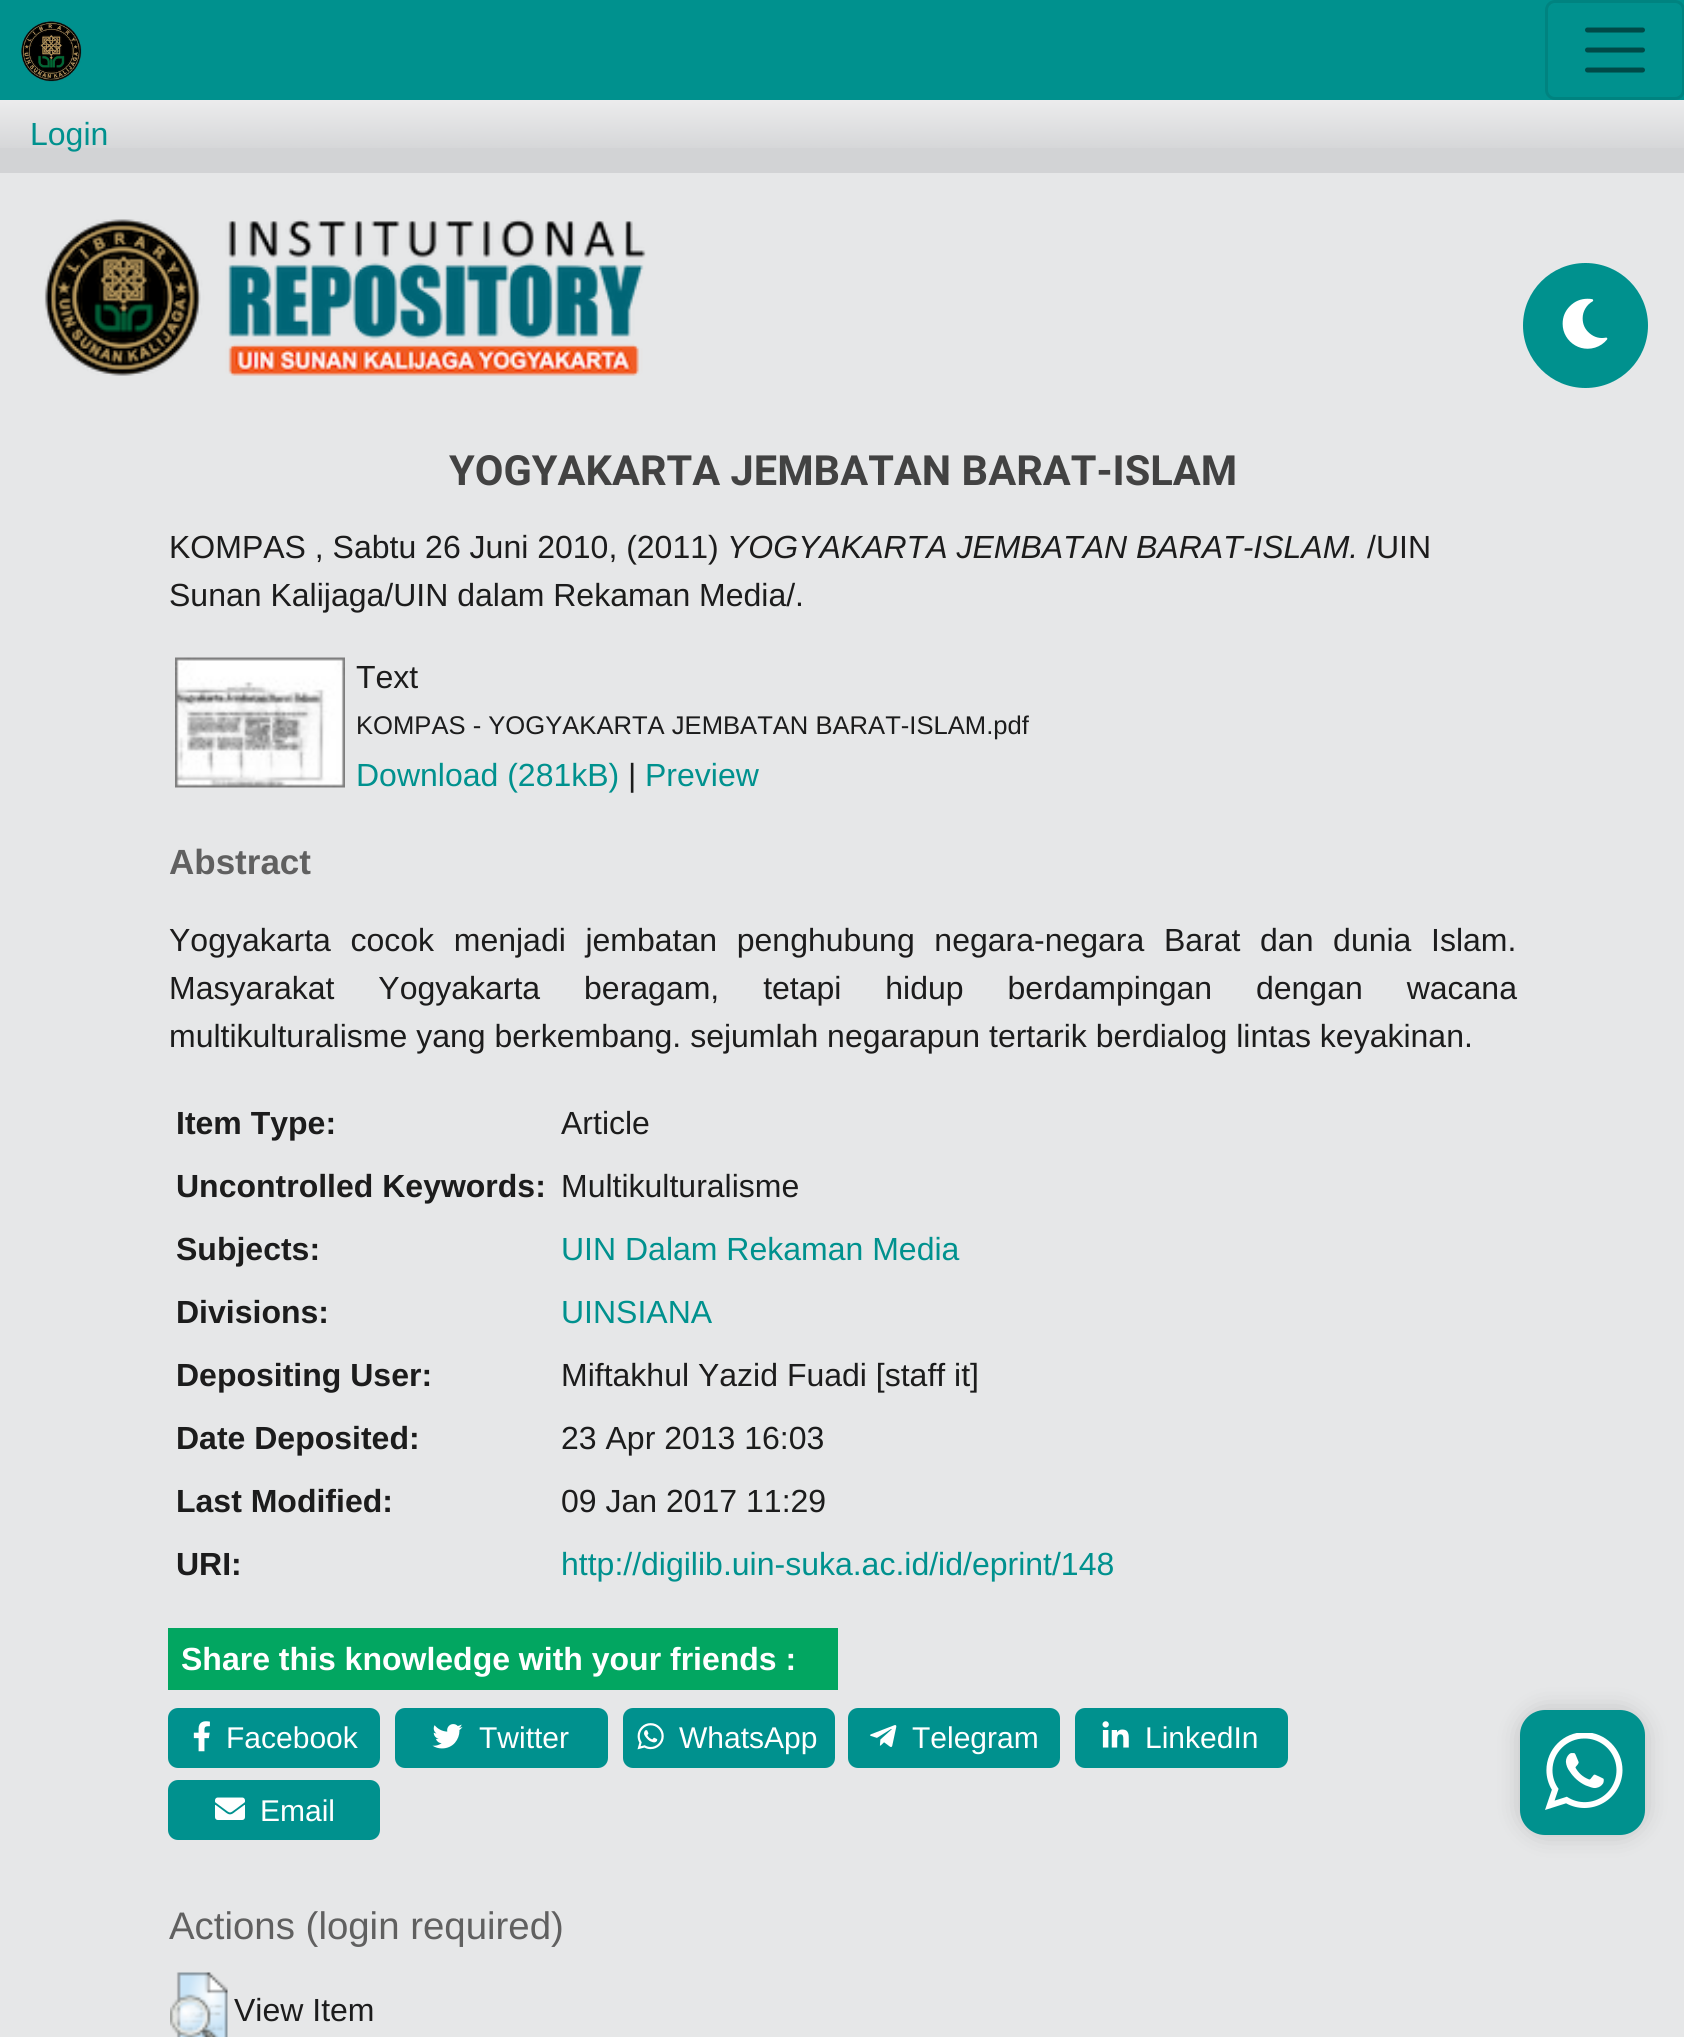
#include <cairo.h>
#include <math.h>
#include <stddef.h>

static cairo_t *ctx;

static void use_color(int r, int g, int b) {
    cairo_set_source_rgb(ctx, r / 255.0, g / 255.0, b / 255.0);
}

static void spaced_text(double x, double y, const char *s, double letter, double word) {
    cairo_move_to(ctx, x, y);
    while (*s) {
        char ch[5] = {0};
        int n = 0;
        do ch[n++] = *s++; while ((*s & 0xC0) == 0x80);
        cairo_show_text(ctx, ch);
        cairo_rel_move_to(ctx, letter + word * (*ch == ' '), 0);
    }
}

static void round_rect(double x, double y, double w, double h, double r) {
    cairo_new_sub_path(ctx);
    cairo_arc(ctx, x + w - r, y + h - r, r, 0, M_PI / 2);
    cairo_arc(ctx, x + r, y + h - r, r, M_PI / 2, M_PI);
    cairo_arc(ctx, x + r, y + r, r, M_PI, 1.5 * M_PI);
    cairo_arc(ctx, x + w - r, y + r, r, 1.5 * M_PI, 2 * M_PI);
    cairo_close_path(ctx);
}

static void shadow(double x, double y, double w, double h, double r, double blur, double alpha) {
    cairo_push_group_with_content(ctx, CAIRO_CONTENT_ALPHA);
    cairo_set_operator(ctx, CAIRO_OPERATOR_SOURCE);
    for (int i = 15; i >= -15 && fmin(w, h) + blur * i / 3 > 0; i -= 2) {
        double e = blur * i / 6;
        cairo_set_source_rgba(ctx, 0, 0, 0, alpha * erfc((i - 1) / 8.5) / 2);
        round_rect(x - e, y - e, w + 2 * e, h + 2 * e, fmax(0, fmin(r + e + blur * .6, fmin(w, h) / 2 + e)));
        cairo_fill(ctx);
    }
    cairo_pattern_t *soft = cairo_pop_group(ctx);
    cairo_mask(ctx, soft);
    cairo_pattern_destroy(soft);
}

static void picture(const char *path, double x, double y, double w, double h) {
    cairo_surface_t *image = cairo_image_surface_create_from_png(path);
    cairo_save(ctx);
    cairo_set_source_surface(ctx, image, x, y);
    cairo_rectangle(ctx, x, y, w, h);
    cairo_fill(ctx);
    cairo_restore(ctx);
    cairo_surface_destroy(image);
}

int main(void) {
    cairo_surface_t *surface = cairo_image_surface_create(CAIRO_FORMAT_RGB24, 1684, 2037);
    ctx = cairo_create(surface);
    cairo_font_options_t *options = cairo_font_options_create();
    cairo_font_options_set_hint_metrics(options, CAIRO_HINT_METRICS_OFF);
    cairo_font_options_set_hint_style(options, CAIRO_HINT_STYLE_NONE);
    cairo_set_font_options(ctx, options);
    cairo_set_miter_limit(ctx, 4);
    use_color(230, 231, 232);
    cairo_paint(ctx);
    use_color(0, 145, 142);
    cairo_rectangle(ctx, 0, 0, 1684, 100);
    cairo_fill(ctx);
    picture("img1.png", 21, 21, 61, 61);
    round_rect(1546.5, 1.5, 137, 97, 8.5);
    use_color(0, 131, 128);
    cairo_set_line_width(ctx, 3);
    cairo_stroke(ctx);
    cairo_new_path(ctx);
    cairo_move_to(ctx, 1587.5, 30);
    cairo_line_to(ctx, 1642.5, 30);
    cairo_move_to(ctx, 1587.5, 50);
    cairo_line_to(ctx, 1642.5, 50);
    cairo_move_to(ctx, 1587.5, 70);
    cairo_line_to(ctx, 1642.5, 70);
    use_color(0, 73, 71);
    cairo_set_line_width(ctx, 5);
    cairo_set_line_cap(ctx, CAIRO_LINE_CAP_ROUND);
    cairo_stroke(ctx);
    use_color(210, 211, 213);
    cairo_rectangle(ctx, 0, 100, 1684, 73);
    cairo_fill(ctx);
    picture("img2.png", 0, 100, 1684, 48);
    cairo_select_font_face(ctx, "Liberation Sans", CAIRO_FONT_SLANT_NORMAL, CAIRO_FONT_WEIGHT_NORMAL);
    cairo_set_font_size(ctx, 32);
    use_color(0, 145, 142);
    cairo_move_to(ctx, 30, 145);
    cairo_show_text(ctx, "Login");
    picture("img3.png", 44, 219, 602, 157);
    cairo_arc(ctx, 1585.5, 325.5, 62.5, 0, 2 * M_PI);
    cairo_fill(ctx);
    picture("img4.png", 1562, 298, 46, 51);
    cairo_select_font_face(ctx, "Roboto", CAIRO_FONT_SLANT_NORMAL, CAIRO_FONT_WEIGHT_BOLD);
    cairo_set_font_size(ctx, 41.6);
    use_color(66, 66, 66);
    cairo_move_to(ctx, 449, 485);
    cairo_show_text(ctx, "YOGYAKARTA JEMBATAN BARAT-ISLAM");
    cairo_select_font_face(ctx, "Liberation Sans", CAIRO_FONT_SLANT_NORMAL, CAIRO_FONT_WEIGHT_NORMAL);
    cairo_set_font_size(ctx, 32);
    use_color(28, 28, 28);
    cairo_move_to(ctx, 169, 558);
    cairo_show_text(ctx, "KOMPAS , Sabtu 26 Juni 2010, (2011)");
    cairo_select_font_face(ctx, "Liberation Sans", CAIRO_FONT_SLANT_ITALIC, CAIRO_FONT_WEIGHT_NORMAL);
    cairo_move_to(ctx, 727, 558);
    cairo_show_text(ctx, "YOGYAKARTA JEMBATAN BARAT-ISLAM.");
    cairo_select_font_face(ctx, "Liberation Sans", CAIRO_FONT_SLANT_NORMAL, CAIRO_FONT_WEIGHT_NORMAL);
    cairo_move_to(ctx, 1367, 558);
    cairo_show_text(ctx, "/UIN");
    cairo_move_to(ctx, 169, 606);
    cairo_show_text(ctx, "Sunan Kalijaga/UIN dalam Rekaman Media/.");
    picture("img5.png", 175, 657, 170, 131);
    cairo_move_to(ctx, 356, 688);
    cairo_show_text(ctx, "Text");
    cairo_set_font_size(ctx, 25.6);
    cairo_move_to(ctx, 356, 734);
    cairo_show_text(ctx, "KOMPAS - YOGYAKARTA JEMBATAN BARAT-ISLAM.pdf");
    cairo_set_font_size(ctx, 32);
    use_color(0, 145, 142);
    cairo_move_to(ctx, 356, 786);
    cairo_show_text(ctx, "Download (281kB)");
    use_color(28, 28, 28);
    cairo_move_to(ctx, 628, 786);
    cairo_show_text(ctx, "|");
    use_color(0, 145, 142);
    cairo_move_to(ctx, 645, 786);
    cairo_show_text(ctx, "Preview");
    cairo_select_font_face(ctx, "Liberation Sans", CAIRO_FONT_SLANT_NORMAL, CAIRO_FONT_WEIGHT_BOLD);
    cairo_set_font_size(ctx, 35);
    use_color(96, 96, 96);
    cairo_move_to(ctx, 169, 874);
    cairo_show_text(ctx, "Abstract");
    cairo_select_font_face(ctx, "Liberation Sans", CAIRO_FONT_SLANT_NORMAL, CAIRO_FONT_WEIGHT_NORMAL);
    cairo_set_font_size(ctx, 32);
    use_color(28, 28, 28);
    spaced_text(169, 951, "Yogyakarta cocok menjadi jembatan penghubung negara-negara Barat dan dunia Islam.", 0, 10.75);
    spaced_text(169, 999, "Masyarakat Yogyakarta beragam, tetapi hidup berdampingan dengan wacana", 0, 35);
    cairo_move_to(ctx, 169, 1047);
    cairo_show_text(ctx, "multikulturalisme yang berkembang. sejumlah negarapun tertarik berdialog lintas keyakinan.");
    cairo_select_font_face(ctx, "Liberation Sans", CAIRO_FONT_SLANT_NORMAL, CAIRO_FONT_WEIGHT_BOLD);
    cairo_move_to(ctx, 176, 1134);
    cairo_show_text(ctx, "Item Type:");
    cairo_select_font_face(ctx, "Liberation Sans", CAIRO_FONT_SLANT_NORMAL, CAIRO_FONT_WEIGHT_NORMAL);
    cairo_move_to(ctx, 561, 1134);
    cairo_show_text(ctx, "Article");
    cairo_select_font_face(ctx, "Liberation Sans", CAIRO_FONT_SLANT_NORMAL, CAIRO_FONT_WEIGHT_BOLD);
    cairo_move_to(ctx, 176, 1197);
    cairo_show_text(ctx, "Uncontrolled Keywords:");
    cairo_select_font_face(ctx, "Liberation Sans", CAIRO_FONT_SLANT_NORMAL, CAIRO_FONT_WEIGHT_NORMAL);
    cairo_move_to(ctx, 561, 1197);
    cairo_show_text(ctx, "Multikulturalisme");
    cairo_select_font_face(ctx, "Liberation Sans", CAIRO_FONT_SLANT_NORMAL, CAIRO_FONT_WEIGHT_BOLD);
    cairo_move_to(ctx, 176, 1260);
    cairo_show_text(ctx, "Subjects:");
    cairo_select_font_face(ctx, "Liberation Sans", CAIRO_FONT_SLANT_NORMAL, CAIRO_FONT_WEIGHT_NORMAL);
    use_color(0, 145, 142);
    cairo_move_to(ctx, 561, 1260);
    cairo_show_text(ctx, "UIN Dalam Rekaman Media");
    cairo_select_font_face(ctx, "Liberation Sans", CAIRO_FONT_SLANT_NORMAL, CAIRO_FONT_WEIGHT_BOLD);
    use_color(28, 28, 28);
    cairo_move_to(ctx, 176, 1323);
    cairo_show_text(ctx, "Divisions:");
    cairo_select_font_face(ctx, "Liberation Sans", CAIRO_FONT_SLANT_NORMAL, CAIRO_FONT_WEIGHT_NORMAL);
    use_color(0, 145, 142);
    cairo_move_to(ctx, 561, 1323);
    cairo_show_text(ctx, "UINSIANA");
    cairo_select_font_face(ctx, "Liberation Sans", CAIRO_FONT_SLANT_NORMAL, CAIRO_FONT_WEIGHT_BOLD);
    use_color(28, 28, 28);
    cairo_move_to(ctx, 176, 1386);
    cairo_show_text(ctx, "Depositing User:");
    cairo_select_font_face(ctx, "Liberation Sans", CAIRO_FONT_SLANT_NORMAL, CAIRO_FONT_WEIGHT_NORMAL);
    cairo_move_to(ctx, 561, 1386);
    cairo_show_text(ctx, "Miftakhul Yazid Fuadi [staff it]");
    cairo_select_font_face(ctx, "Liberation Sans", CAIRO_FONT_SLANT_NORMAL, CAIRO_FONT_WEIGHT_BOLD);
    cairo_move_to(ctx, 176, 1449);
    cairo_show_text(ctx, "Date Deposited:");
    cairo_select_font_face(ctx, "Liberation Sans", CAIRO_FONT_SLANT_NORMAL, CAIRO_FONT_WEIGHT_NORMAL);
    cairo_move_to(ctx, 561, 1449);
    cairo_show_text(ctx, "23 Apr 2013 16:03");
    cairo_select_font_face(ctx, "Liberation Sans", CAIRO_FONT_SLANT_NORMAL, CAIRO_FONT_WEIGHT_BOLD);
    cairo_move_to(ctx, 176, 1512);
    cairo_show_text(ctx, "Last Modified:");
    cairo_select_font_face(ctx, "Liberation Sans", CAIRO_FONT_SLANT_NORMAL, CAIRO_FONT_WEIGHT_NORMAL);
    cairo_move_to(ctx, 561, 1512);
    cairo_show_text(ctx, "09 Jan 2017 11:29");
    cairo_select_font_face(ctx, "Liberation Sans", CAIRO_FONT_SLANT_NORMAL, CAIRO_FONT_WEIGHT_BOLD);
    cairo_move_to(ctx, 176, 1575);
    cairo_show_text(ctx, "URI:");
    cairo_select_font_face(ctx, "Liberation Sans", CAIRO_FONT_SLANT_NORMAL, CAIRO_FONT_WEIGHT_NORMAL);
    use_color(0, 145, 142);
    cairo_move_to(ctx, 561, 1575);
    cairo_show_text(ctx, "http://digilib.uin-suka.ac.id/id/eprint/148");
    use_color(2, 166, 97);
    cairo_rectangle(ctx, 168, 1628, 670, 62);
    cairo_fill(ctx);
    cairo_select_font_face(ctx, "Liberation Sans", CAIRO_FONT_SLANT_NORMAL, CAIRO_FONT_WEIGHT_BOLD);
    use_color(255, 255, 255);
    cairo_move_to(ctx, 181, 1670);
    cairo_show_text(ctx, "Share this knowledge with your friends :");
    use_color(0, 145, 142);
    round_rect(168, 1708, 212, 60, 10);
    cairo_fill(ctx);
    picture("img6.png", 193, 1721, 17, 31);
    cairo_select_font_face(ctx, "Liberation Sans", CAIRO_FONT_SLANT_NORMAL, CAIRO_FONT_WEIGHT_NORMAL);
    cairo_set_font_size(ctx, 30);
    use_color(255, 255, 255);
    cairo_move_to(ctx, 226, 1748);
    cairo_show_text(ctx, "Facebook");
    use_color(0, 145, 142);
    round_rect(395, 1708, 213, 60, 10);
    cairo_fill(ctx);
    picture("img7.png", 432, 1724, 31, 25);
    use_color(255, 255, 255);
    cairo_move_to(ctx, 479, 1748);
    cairo_show_text(ctx, "Twitter");
    use_color(0, 145, 142);
    round_rect(623, 1708, 212, 60, 10);
    cairo_fill(ctx);
    picture("img8.png", 637, 1723, 27, 27);
    use_color(255, 255, 255);
    cairo_move_to(ctx, 679, 1748);
    cairo_show_text(ctx, "WhatsApp");
    use_color(0, 145, 142);
    round_rect(848, 1708, 212, 60, 10);
    cairo_fill(ctx);
    picture("img9.png", 870, 1725, 27, 22);
    use_color(255, 255, 255);
    cairo_move_to(ctx, 912, 1748);
    cairo_show_text(ctx, "Telegram");
    use_color(0, 145, 142);
    round_rect(1075, 1708, 213, 60, 10);
    cairo_fill(ctx);
    picture("img10.png", 1102, 1721, 27, 27);
    use_color(255, 255, 255);
    cairo_move_to(ctx, 1145, 1748);
    cairo_show_text(ctx, "LinkedIn");
    use_color(0, 145, 142);
    round_rect(168, 1780, 212, 60, 10);
    cairo_fill(ctx);
    picture("img11.png", 215, 1797, 30, 23);
    use_color(255, 255, 255);
    cairo_move_to(ctx, 260, 1821);
    cairo_show_text(ctx, "Email");
    cairo_set_font_size(ctx, 38.4);
    use_color(96, 96, 96);
    cairo_move_to(ctx, 169, 1939);
    cairo_show_text(ctx, "Actions (login required)");
    picture("img12.png", 170, 1972, 58, 65);
    cairo_set_font_size(ctx, 32);
    use_color(28, 28, 28);
    cairo_move_to(ctx, 234, 2021);
    cairo_show_text(ctx, "View Item");
    use_color(0, 0, 0);
    shadow(1520, 1710, 125, 125, 25, 12.5, 0.16);
    use_color(0, 145, 142);
    round_rect(1520, 1710, 125, 125, 25);
    cairo_fill(ctx);
    picture("img13.png", 1545, 1733, 78, 77);
    cairo_surface_write_to_png(surface, "result.png");
    cairo_font_options_destroy(options);
    cairo_destroy(ctx);
    cairo_surface_destroy(surface);
    return 0;
}
